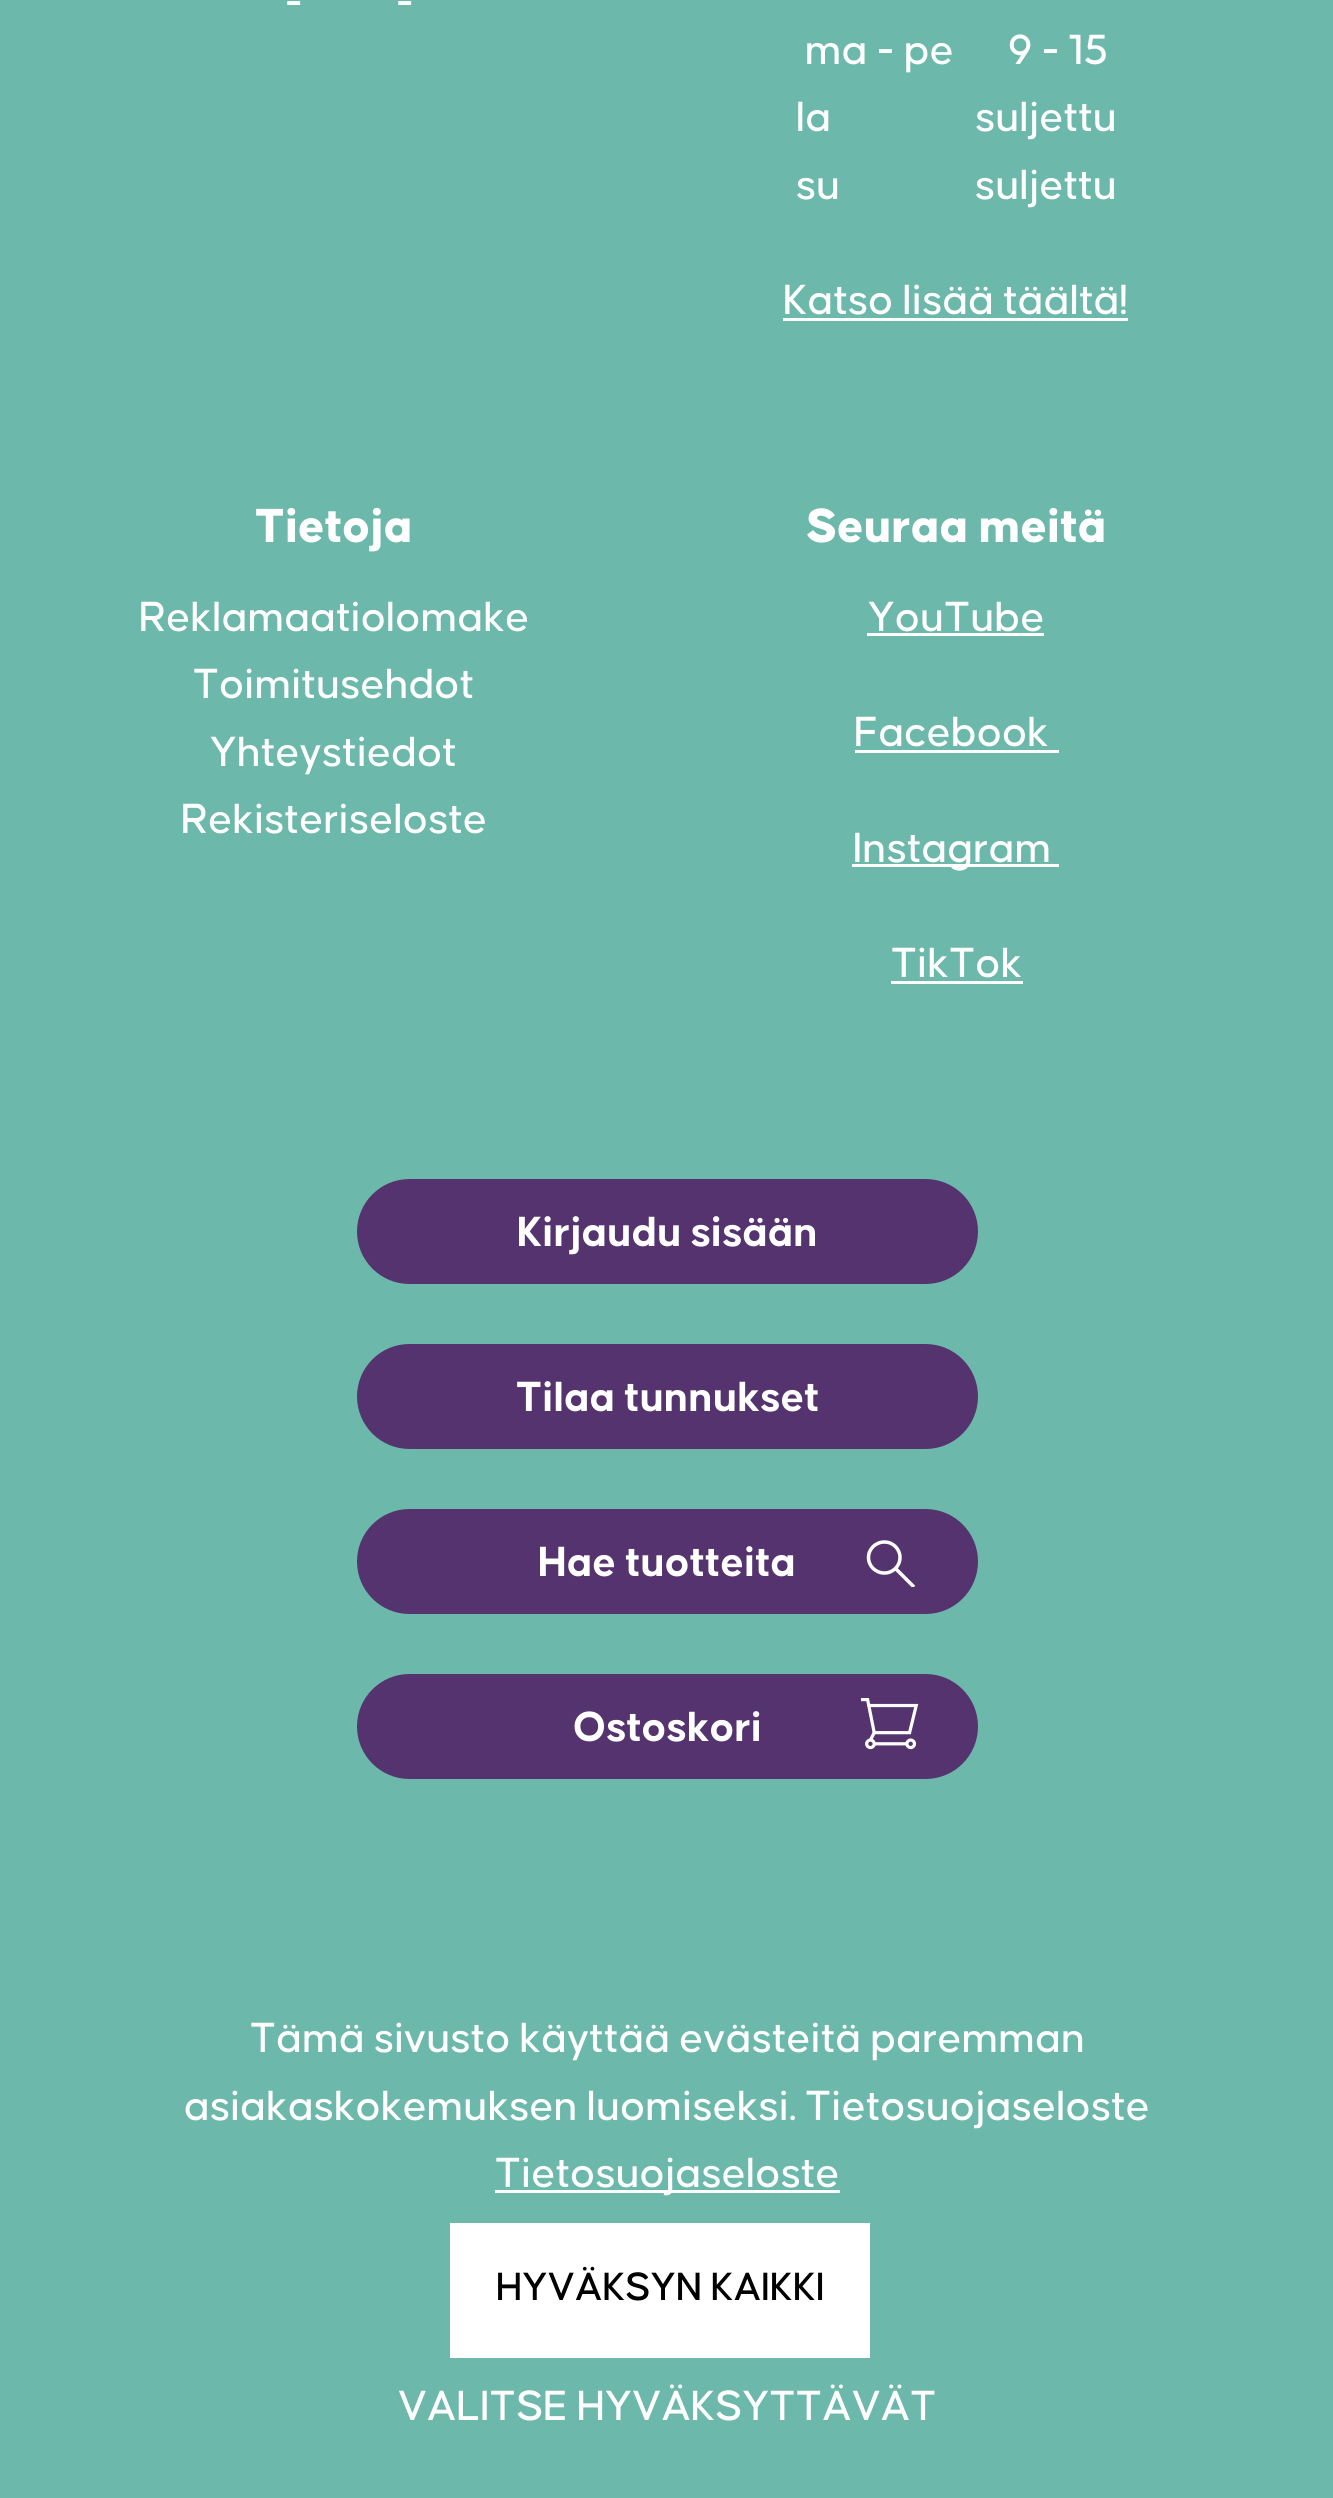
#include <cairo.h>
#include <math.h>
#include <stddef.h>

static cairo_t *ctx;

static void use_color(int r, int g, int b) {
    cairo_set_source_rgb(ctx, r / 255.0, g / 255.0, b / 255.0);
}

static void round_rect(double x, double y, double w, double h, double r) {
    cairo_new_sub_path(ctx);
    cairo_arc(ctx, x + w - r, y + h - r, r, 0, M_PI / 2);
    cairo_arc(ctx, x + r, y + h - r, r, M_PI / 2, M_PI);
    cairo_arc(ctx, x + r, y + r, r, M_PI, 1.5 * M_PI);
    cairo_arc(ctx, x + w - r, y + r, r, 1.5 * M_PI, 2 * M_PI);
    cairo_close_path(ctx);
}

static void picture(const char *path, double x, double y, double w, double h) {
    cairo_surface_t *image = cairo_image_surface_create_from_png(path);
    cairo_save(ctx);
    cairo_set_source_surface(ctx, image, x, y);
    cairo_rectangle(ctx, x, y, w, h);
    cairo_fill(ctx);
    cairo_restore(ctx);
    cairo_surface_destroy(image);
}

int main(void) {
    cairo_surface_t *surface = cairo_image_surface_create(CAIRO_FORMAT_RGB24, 1333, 2498);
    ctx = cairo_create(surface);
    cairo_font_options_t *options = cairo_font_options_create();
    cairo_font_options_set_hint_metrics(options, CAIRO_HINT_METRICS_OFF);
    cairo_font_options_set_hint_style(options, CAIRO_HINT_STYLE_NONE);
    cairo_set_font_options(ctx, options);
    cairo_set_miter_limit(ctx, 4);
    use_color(108, 184, 171);
    cairo_paint(ctx);
    cairo_select_font_face(ctx, "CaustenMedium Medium", CAIRO_FONT_SLANT_NORMAL, CAIRO_FONT_WEIGHT_NORMAL);
    cairo_set_font_size(ctx, 45);
    use_color(255, 255, 255);
    cairo_move_to(ctx, 285, 16);
    cairo_show_text(ctx, "-");
    cairo_move_to(ctx, 396, 16);
    cairo_show_text(ctx, "-");
    cairo_move_to(ctx, 805, 64);
    cairo_show_text(ctx, "ma - pe      9 - 15");
    cairo_move_to(ctx, 796, 131);
    cairo_show_text(ctx, "la                suljettu");
    cairo_move_to(ctx, 796, 199);
    cairo_show_text(ctx, "su               suljettu");
    cairo_move_to(ctx, 783, 314);
    cairo_show_text(ctx, "Katso lisää täältä!");
    cairo_rectangle(ctx, 783, 318, 345, 3);
    cairo_fill(ctx);
    cairo_select_font_face(ctx, "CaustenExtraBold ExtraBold", CAIRO_FONT_SLANT_NORMAL, CAIRO_FONT_WEIGHT_NORMAL);
    cairo_set_font_size(ctx, 51);
    cairo_move_to(ctx, 255, 542);
    cairo_show_text(ctx, "Tietoja");
    cairo_select_font_face(ctx, "CaustenMedium Medium", CAIRO_FONT_SLANT_NORMAL, CAIRO_FONT_WEIGHT_NORMAL);
    cairo_set_font_size(ctx, 45);
    cairo_move_to(ctx, 139, 631);
    cairo_show_text(ctx, "Reklamaatiolomake");
    cairo_move_to(ctx, 193, 698);
    cairo_show_text(ctx, "Toimitusehdot");
    cairo_move_to(ctx, 210, 766);
    cairo_show_text(ctx, "Yhteystiedot");
    cairo_move_to(ctx, 181, 833);
    cairo_show_text(ctx, "Rekisteriseloste");
    cairo_select_font_face(ctx, "CaustenExtraBold ExtraBold", CAIRO_FONT_SLANT_NORMAL, CAIRO_FONT_WEIGHT_NORMAL);
    cairo_set_font_size(ctx, 51);
    cairo_move_to(ctx, 806, 542);
    cairo_show_text(ctx, "Seuraa meitä");
    cairo_select_font_face(ctx, "CaustenMedium Medium", CAIRO_FONT_SLANT_NORMAL, CAIRO_FONT_WEIGHT_NORMAL);
    cairo_set_font_size(ctx, 45);
    cairo_move_to(ctx, 868, 631);
    cairo_show_text(ctx, "YouTube");
    cairo_rectangle(ctx, 867, 633, 177, 3);
    cairo_fill(ctx);
    cairo_move_to(ctx, 854, 746);
    cairo_show_text(ctx, "Facebook");
    cairo_rectangle(ctx, 855, 750, 204, 3);
    cairo_fill(ctx);
    cairo_rectangle(ctx, 852, 864, 207, 3);
    cairo_fill(ctx);
    cairo_move_to(ctx, 853, 862);
    cairo_show_text(ctx, "Instagram");
    cairo_move_to(ctx, 891, 977);
    cairo_show_text(ctx, "TikTok");
    cairo_rectangle(ctx, 891, 981, 132, 3);
    cairo_fill(ctx);
    use_color(84, 51, 110);
    round_rect(357, 1179, 621, 105, 52.5);
    cairo_fill(ctx);
    cairo_select_font_face(ctx, "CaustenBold", CAIRO_FONT_SLANT_NORMAL, CAIRO_FONT_WEIGHT_BOLD);
    use_color(255, 255, 255);
    cairo_move_to(ctx, 517, 1246);
    cairo_show_text(ctx, "Kirjaudu sisään");
    use_color(84, 51, 110);
    round_rect(357, 1344, 621, 105, 52.5);
    cairo_fill(ctx);
    use_color(255, 255, 255);
    cairo_move_to(ctx, 516, 1411);
    cairo_show_text(ctx, "Tilaa tunnukset");
    use_color(84, 51, 110);
    round_rect(357, 1509, 621, 105, 52.5);
    cairo_fill(ctx);
    cairo_new_path(ctx);
    cairo_move_to(ctx, 884.5, 1573);
    cairo_curve_to(ctx, 893, 1573, 900, 1566, 900, 1557.5);
    cairo_curve_to(ctx, 900, 1549, 893, 1542, 884.5, 1542);
    cairo_curve_to(ctx, 875.5, 1542, 868.5, 1549, 868.5, 1557.5);
    cairo_curve_to(ctx, 868.5, 1566, 875.5, 1573, 884.5, 1573);
    cairo_close_path(ctx);
    use_color(255, 255, 255);
    cairo_set_line_width(ctx, 3.5);
    cairo_stroke(ctx);
    cairo_save(ctx);
    cairo_rectangle(ctx, 866, 1527, 50, 60);
    cairo_clip(ctx);
    cairo_new_path(ctx);
    cairo_move_to(ctx, 895.5, 1568.5);
    cairo_line_to(ctx, 914, 1587);
    cairo_stroke(ctx);
    cairo_restore(ctx);
    cairo_move_to(ctx, 538, 1576);
    cairo_show_text(ctx, "Hae tuotteita");
    use_color(84, 51, 110);
    round_rect(357, 1674, 621, 105, 52.5);
    cairo_fill(ctx);
    picture("img1.png", 861, 1698, 58, 52);
    use_color(255, 255, 255);
    cairo_move_to(ctx, 573, 1741);
    cairo_show_text(ctx, "Ostoskori");
    cairo_select_font_face(ctx, "CaustenMedium Medium", CAIRO_FONT_SLANT_NORMAL, CAIRO_FONT_WEIGHT_NORMAL);
    cairo_move_to(ctx, 250, 2052);
    cairo_show_text(ctx, "Tämä sivusto käyttää evästeitä paremman");
    cairo_move_to(ctx, 184, 2120);
    cairo_show_text(ctx, "asiakaskokemuksen luomiseksi. Tietosuojaseloste");
    cairo_rectangle(ctx, 495, 2190, 345, 3);
    cairo_fill(ctx);
    cairo_move_to(ctx, 495, 2187);
    cairo_show_text(ctx, "Tietosuojaseloste");
    cairo_rectangle(ctx, 450, 2223, 420, 135);
    cairo_fill(ctx);
    cairo_set_font_size(ctx, 42);
    use_color(0, 0, 0);
    cairo_move_to(ctx, 496, 2300);
    cairo_show_text(ctx, "HYVÄKSYN KAIKKI");
    cairo_set_font_size(ctx, 45);
    use_color(255, 255, 255);
    cairo_move_to(ctx, 398, 2420);
    cairo_show_text(ctx, "VALITSE HYVÄKSYTTÄVÄT");
    cairo_surface_write_to_png(surface, "result.png");
    cairo_font_options_destroy(options);
    cairo_destroy(ctx);
    cairo_surface_destroy(surface);
    return 0;
}
